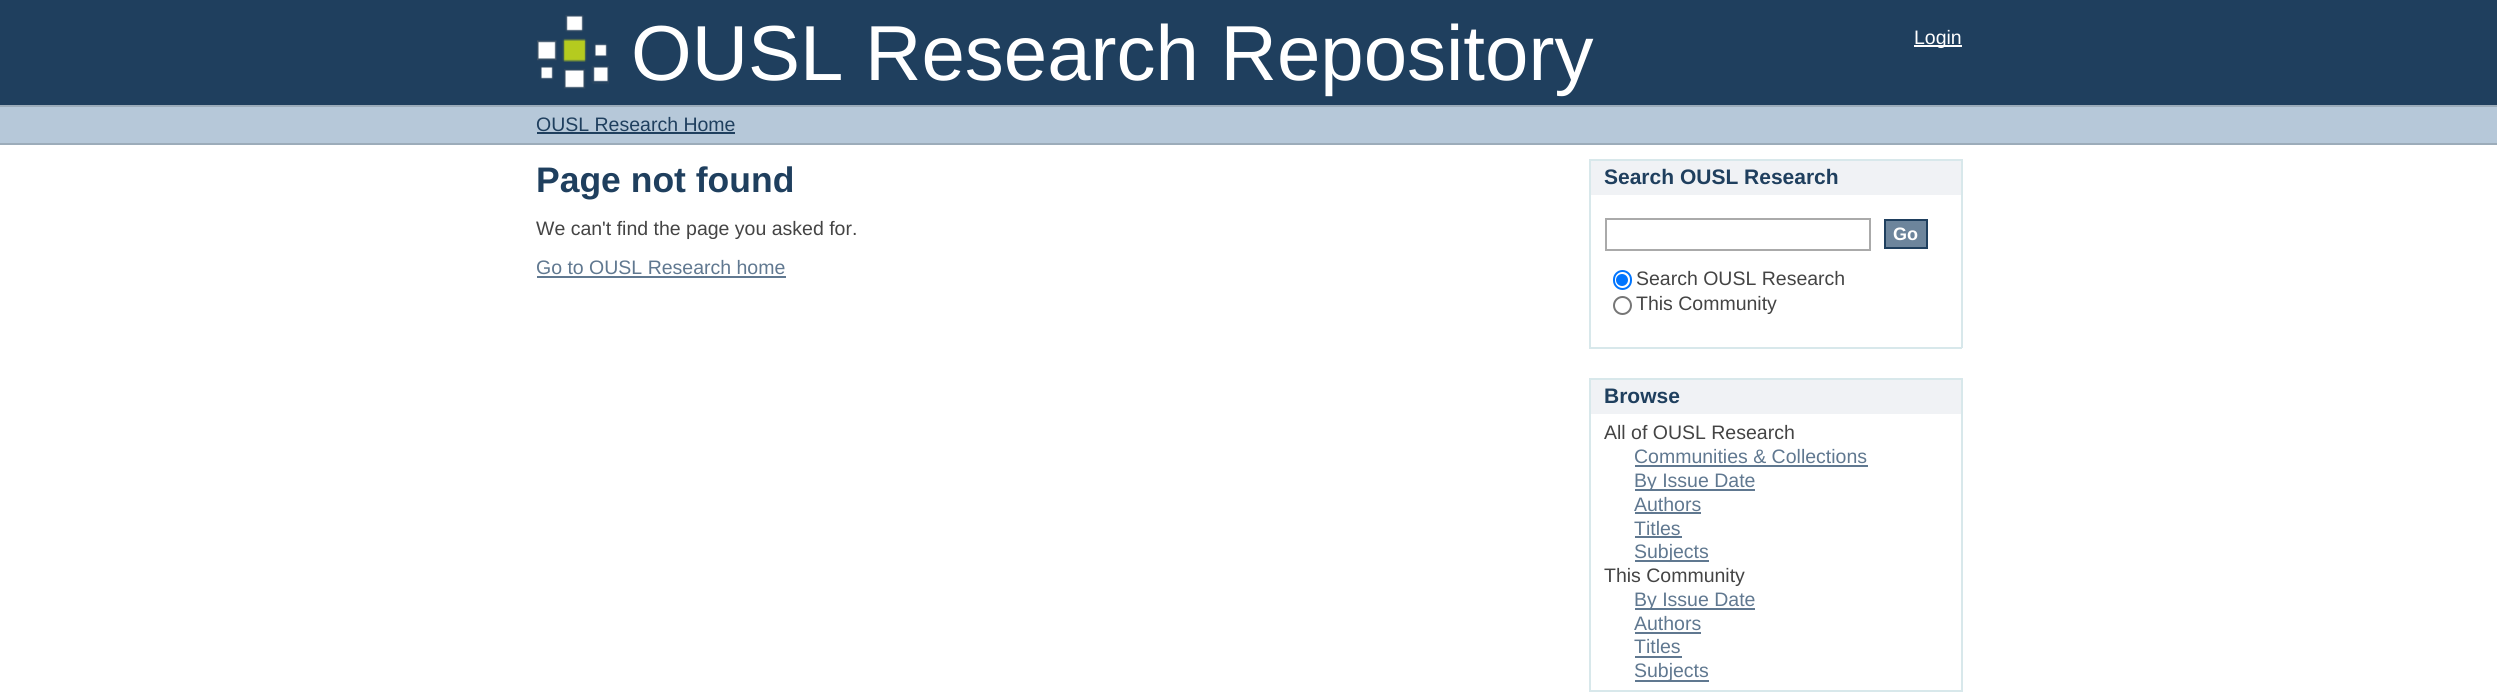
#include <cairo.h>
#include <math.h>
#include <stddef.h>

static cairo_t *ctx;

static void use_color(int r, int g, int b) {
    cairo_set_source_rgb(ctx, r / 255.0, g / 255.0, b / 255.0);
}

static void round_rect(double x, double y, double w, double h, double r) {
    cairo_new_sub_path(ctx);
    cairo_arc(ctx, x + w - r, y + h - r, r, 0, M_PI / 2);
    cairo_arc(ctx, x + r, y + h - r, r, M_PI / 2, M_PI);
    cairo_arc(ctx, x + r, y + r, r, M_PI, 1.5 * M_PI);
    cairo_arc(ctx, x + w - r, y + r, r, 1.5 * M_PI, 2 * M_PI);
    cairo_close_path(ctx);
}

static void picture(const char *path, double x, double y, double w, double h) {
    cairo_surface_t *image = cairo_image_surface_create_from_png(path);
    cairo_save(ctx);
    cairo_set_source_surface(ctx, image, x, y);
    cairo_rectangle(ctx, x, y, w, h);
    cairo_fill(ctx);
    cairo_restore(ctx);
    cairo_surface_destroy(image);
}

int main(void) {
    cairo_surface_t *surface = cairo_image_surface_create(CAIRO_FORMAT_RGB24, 2497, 694);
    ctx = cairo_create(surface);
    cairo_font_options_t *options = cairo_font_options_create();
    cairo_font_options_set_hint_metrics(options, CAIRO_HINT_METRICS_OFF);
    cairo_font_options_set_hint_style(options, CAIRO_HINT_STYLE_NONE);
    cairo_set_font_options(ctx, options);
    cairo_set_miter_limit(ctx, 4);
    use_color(255, 255, 255);
    cairo_paint(ctx);
    use_color(31, 63, 94);
    cairo_rectangle(ctx, 0, 0, 2497, 105);
    cairo_fill(ctx);
    picture("img1.png", 537, 15, 72, 74);
    cairo_select_font_face(ctx, "Liberation Sans", CAIRO_FONT_SLANT_NORMAL, CAIRO_FONT_WEIGHT_NORMAL);
    cairo_set_font_size(ctx, 78);
    use_color(255, 255, 255);
    cairo_move_to(ctx, 631, 80);
    cairo_show_text(ctx, "OUSL Research Repository");
    cairo_rectangle(ctx, 1914, 45, 48, 2);
    cairo_fill(ctx);
    cairo_set_font_size(ctx, 19.5);
    cairo_move_to(ctx, 1914, 44);
    cairo_show_text(ctx, "Login");
    use_color(182, 200, 217);
    cairo_rectangle(ctx, 0, 107, 2497, 36);
    cairo_fill(ctx);
    use_color(156, 172, 186);
    cairo_rectangle(ctx, 0, 105, 2497, 2);
    cairo_fill(ctx);
    cairo_rectangle(ctx, 0, 143, 2497, 2);
    cairo_fill(ctx);
    use_color(31, 63, 94);
    cairo_move_to(ctx, 536, 131);
    cairo_show_text(ctx, "OUSL Research Home");
    cairo_rectangle(ctx, 537, 132, 198, 2);
    cairo_fill(ctx);
    cairo_select_font_face(ctx, "Liberation Sans", CAIRO_FONT_SLANT_NORMAL, CAIRO_FONT_WEIGHT_BOLD);
    cairo_set_font_size(ctx, 35.5);
    cairo_move_to(ctx, 536, 192);
    cairo_show_text(ctx, "Page not found");
    cairo_select_font_face(ctx, "Liberation Sans", CAIRO_FONT_SLANT_NORMAL, CAIRO_FONT_WEIGHT_NORMAL);
    cairo_set_font_size(ctx, 19.5);
    use_color(68, 68, 68);
    cairo_move_to(ctx, 536, 235);
    cairo_show_text(ctx, "We can't find the page you asked for.");
    use_color(96, 120, 144);
    cairo_move_to(ctx, 536, 274);
    cairo_show_text(ctx, "Go to OUSL Research home");
    cairo_rectangle(ctx, 537, 276, 249, 2);
    cairo_fill(ctx);
    use_color(240, 242, 245);
    cairo_rectangle(ctx, 1591, 161, 370, 34);
    cairo_fill(ctx);
    use_color(216, 232, 235);
    cairo_rectangle(ctx, 1589, 159, 373, 2);
    cairo_fill(ctx);
    cairo_rectangle(ctx, 1961, 159, 2, 189);
    cairo_fill(ctx);
    cairo_rectangle(ctx, 1589, 159, 2, 36);
    cairo_fill(ctx);
    cairo_select_font_face(ctx, "Liberation Sans", CAIRO_FONT_SLANT_NORMAL, CAIRO_FONT_WEIGHT_BOLD);
    cairo_set_font_size(ctx, 21);
    use_color(31, 63, 94);
    cairo_move_to(ctx, 1604, 184);
    cairo_show_text(ctx, "Search OUSL Research");
    use_color(216, 232, 235);
    cairo_rectangle(ctx, 1589, 347, 373, 2);
    cairo_fill(ctx);
    cairo_rectangle(ctx, 1589, 195, 2, 153);
    cairo_fill(ctx);
    cairo_rectangle(ctx, 1606, 219, 264, 31);
    use_color(170, 170, 170);
    cairo_stroke(ctx);
    use_color(109, 133, 156);
    cairo_rectangle(ctx, 1885, 220, 42, 28);
    cairo_fill_preserve(ctx);
    use_color(31, 63, 94);
    cairo_stroke(ctx);
    cairo_set_font_size(ctx, 18);
    use_color(255, 255, 255);
    cairo_move_to(ctx, 1893, 240);
    cairo_show_text(ctx, "Go");
    round_rect(1614, 271, 17, 18, 8.5);
    use_color(0, 117, 255);
    cairo_stroke(ctx);
    cairo_arc(ctx, 1622, 280, 6, 0, 2 * M_PI);
    cairo_fill(ctx);
    cairo_select_font_face(ctx, "Liberation Sans", CAIRO_FONT_SLANT_NORMAL, CAIRO_FONT_WEIGHT_NORMAL);
    cairo_set_font_size(ctx, 19.5);
    use_color(68, 68, 68);
    cairo_move_to(ctx, 1636, 285);
    cairo_show_text(ctx, "Search OUSL Research");
    cairo_new_path(ctx);
    cairo_arc(ctx, 1622.5, 305.5, 8.5, 0, 2 * M_PI);
    use_color(118, 118, 118);
    cairo_stroke(ctx);
    use_color(68, 68, 68);
    cairo_move_to(ctx, 1636, 310);
    cairo_show_text(ctx, "This Community");
    use_color(240, 242, 245);
    cairo_rectangle(ctx, 1591, 380, 370, 34);
    cairo_fill(ctx);
    use_color(216, 232, 235);
    cairo_rectangle(ctx, 1589, 378, 373, 2);
    cairo_fill(ctx);
    cairo_rectangle(ctx, 1961, 378, 2, 314);
    cairo_fill(ctx);
    cairo_rectangle(ctx, 1589, 378, 2, 36);
    cairo_fill(ctx);
    cairo_select_font_face(ctx, "Liberation Sans", CAIRO_FONT_SLANT_NORMAL, CAIRO_FONT_WEIGHT_BOLD);
    cairo_set_font_size(ctx, 21);
    use_color(31, 63, 94);
    cairo_move_to(ctx, 1604, 403);
    cairo_show_text(ctx, "Browse");
    use_color(216, 232, 235);
    cairo_rectangle(ctx, 1589, 690, 373, 2);
    cairo_fill(ctx);
    cairo_rectangle(ctx, 1589, 414, 2, 278);
    cairo_fill(ctx);
    cairo_select_font_face(ctx, "Liberation Sans", CAIRO_FONT_SLANT_NORMAL, CAIRO_FONT_WEIGHT_NORMAL);
    cairo_set_font_size(ctx, 19.5);
    use_color(68, 68, 68);
    cairo_move_to(ctx, 1604, 439);
    cairo_show_text(ctx, "All of OUSL Research");
    use_color(96, 120, 144);
    cairo_move_to(ctx, 1634, 463);
    cairo_show_text(ctx, "Communities & Collections");
    cairo_rectangle(ctx, 1635, 465, 233, 2);
    cairo_fill(ctx);
    cairo_rectangle(ctx, 1635, 489, 120, 2);
    cairo_fill(ctx);
    cairo_move_to(ctx, 1634, 487);
    cairo_show_text(ctx, "By Issue Date");
    cairo_move_to(ctx, 1634, 511);
    cairo_show_text(ctx, "Authors");
    cairo_rectangle(ctx, 1635, 512, 66, 2);
    cairo_fill(ctx);
    cairo_move_to(ctx, 1634, 535);
    cairo_show_text(ctx, "Titles");
    cairo_rectangle(ctx, 1635, 536, 47, 2);
    cairo_fill(ctx);
    cairo_rectangle(ctx, 1635, 560, 74, 2);
    cairo_fill(ctx);
    cairo_move_to(ctx, 1634, 558);
    cairo_show_text(ctx, "Subjects");
    use_color(68, 68, 68);
    cairo_move_to(ctx, 1604, 582);
    cairo_show_text(ctx, "This Community");
    use_color(96, 120, 144);
    cairo_rectangle(ctx, 1635, 608, 120, 2);
    cairo_fill(ctx);
    cairo_move_to(ctx, 1634, 606);
    cairo_show_text(ctx, "By Issue Date");
    cairo_move_to(ctx, 1634, 630);
    cairo_show_text(ctx, "Authors");
    cairo_rectangle(ctx, 1635, 632, 66, 2);
    cairo_fill(ctx);
    cairo_move_to(ctx, 1634, 653);
    cairo_show_text(ctx, "Titles");
    cairo_rectangle(ctx, 1635, 656, 47, 2);
    cairo_fill(ctx);
    cairo_rectangle(ctx, 1635, 680, 74, 2);
    cairo_fill(ctx);
    cairo_move_to(ctx, 1634, 677);
    cairo_show_text(ctx, "Subjects");
    cairo_surface_write_to_png(surface, "result.png");
    cairo_font_options_destroy(options);
    cairo_destroy(ctx);
    cairo_surface_destroy(surface);
    return 0;
}
